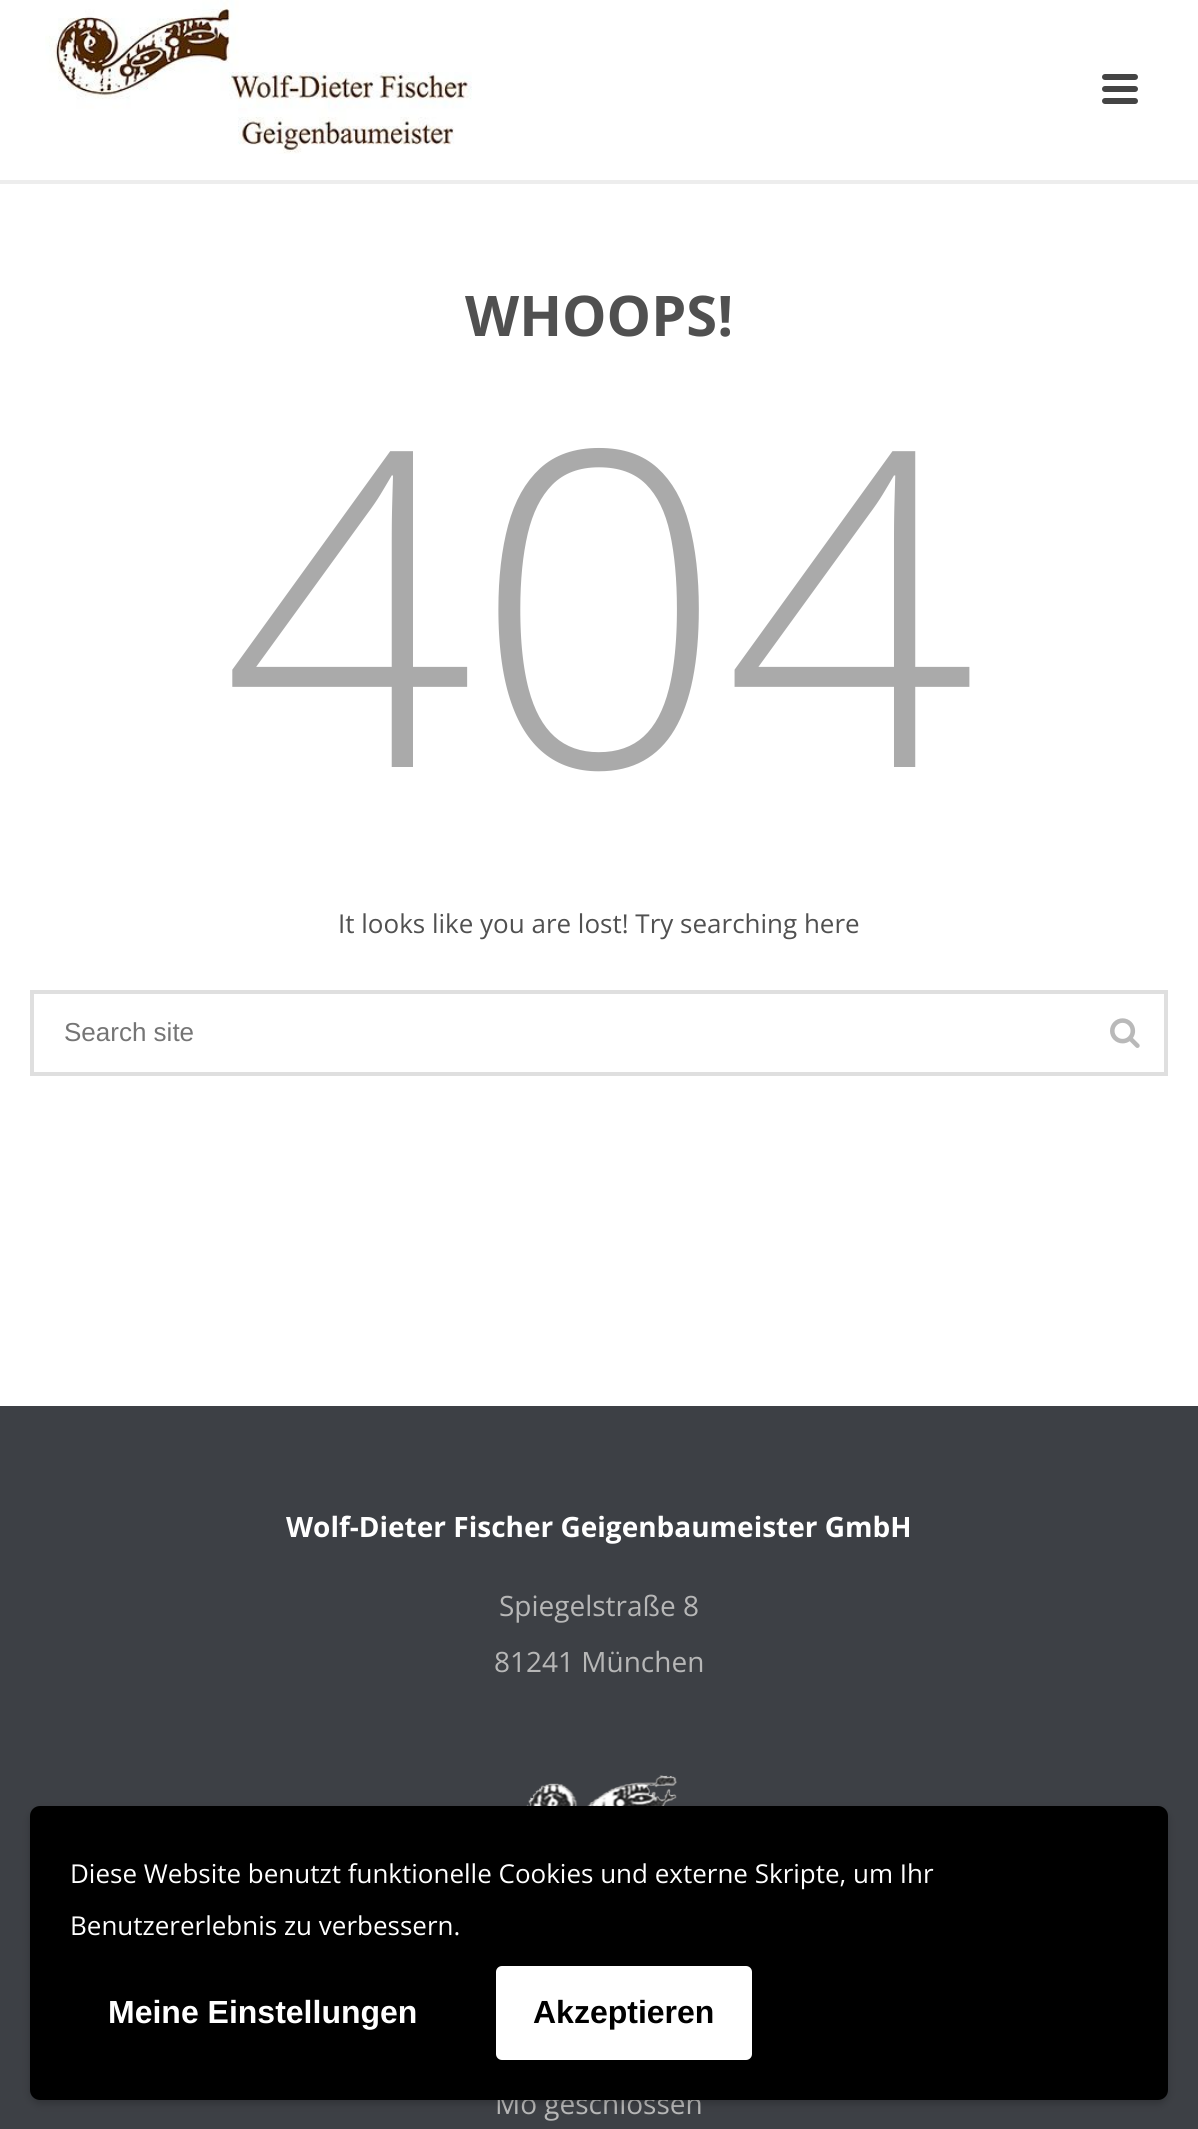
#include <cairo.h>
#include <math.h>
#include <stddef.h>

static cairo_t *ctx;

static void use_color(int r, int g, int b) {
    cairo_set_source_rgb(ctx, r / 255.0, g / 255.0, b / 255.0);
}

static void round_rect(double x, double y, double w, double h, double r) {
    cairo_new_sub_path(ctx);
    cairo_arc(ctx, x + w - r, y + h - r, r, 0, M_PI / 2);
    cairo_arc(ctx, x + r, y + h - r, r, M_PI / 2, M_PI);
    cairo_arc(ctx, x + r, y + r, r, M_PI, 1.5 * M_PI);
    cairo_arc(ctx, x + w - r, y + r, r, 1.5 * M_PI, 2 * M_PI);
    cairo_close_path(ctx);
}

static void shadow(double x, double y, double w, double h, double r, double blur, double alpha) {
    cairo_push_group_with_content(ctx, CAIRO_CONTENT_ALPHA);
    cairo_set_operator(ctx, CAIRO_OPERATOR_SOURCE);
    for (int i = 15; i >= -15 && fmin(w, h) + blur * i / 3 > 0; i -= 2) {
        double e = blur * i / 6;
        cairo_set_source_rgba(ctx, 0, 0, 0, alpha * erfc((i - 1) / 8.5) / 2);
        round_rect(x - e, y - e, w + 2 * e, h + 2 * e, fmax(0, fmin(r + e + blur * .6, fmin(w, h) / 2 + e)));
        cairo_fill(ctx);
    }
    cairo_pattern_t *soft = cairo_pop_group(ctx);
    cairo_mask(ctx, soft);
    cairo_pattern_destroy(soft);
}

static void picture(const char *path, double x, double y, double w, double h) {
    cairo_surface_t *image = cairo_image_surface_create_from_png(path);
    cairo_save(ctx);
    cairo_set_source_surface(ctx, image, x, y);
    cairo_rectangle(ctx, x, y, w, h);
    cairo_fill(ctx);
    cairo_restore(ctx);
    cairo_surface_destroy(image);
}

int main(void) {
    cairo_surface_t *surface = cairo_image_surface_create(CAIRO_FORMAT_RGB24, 1198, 2129);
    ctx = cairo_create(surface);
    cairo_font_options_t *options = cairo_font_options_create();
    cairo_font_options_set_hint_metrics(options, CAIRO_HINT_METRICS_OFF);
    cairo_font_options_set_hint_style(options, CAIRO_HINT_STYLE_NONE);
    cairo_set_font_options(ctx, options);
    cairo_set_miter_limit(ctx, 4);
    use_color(61, 64, 69);
    cairo_paint(ctx);
    use_color(255, 255, 255);
    cairo_rectangle(ctx, 0, 0, 1198, 180);
    cairo_fill(ctx);
    use_color(237, 237, 237);
    cairo_rectangle(ctx, 0, 180, 1198, 4);
    cairo_fill(ctx);
    picture("img1.png", 45, 0, 427, 154);
    use_color(68, 68, 68);
    round_rect(1102, 74, 36, 6, 3);
    cairo_fill(ctx);
    round_rect(1102, 86, 36, 6, 3);
    cairo_fill(ctx);
    round_rect(1102, 98, 36, 6, 3);
    cairo_fill(ctx);
    use_color(255, 255, 255);
    cairo_rectangle(ctx, 0, 184, 1198, 1222);
    cairo_fill(ctx);
    cairo_select_font_face(ctx, "Open Sans", CAIRO_FONT_SLANT_NORMAL, CAIRO_FONT_WEIGHT_BOLD);
    cairo_set_font_size(ctx, 56);
    use_color(80, 80, 80);
    cairo_move_to(ctx, 465, 336);
    cairo_show_text(ctx, "WHOOPS!");
    cairo_select_font_face(ctx, "Open Sans Light", CAIRO_FONT_SLANT_NORMAL, CAIRO_FONT_WEIGHT_NORMAL);
    cairo_set_font_size(ctx, 440);
    use_color(170, 170, 170);
    cairo_move_to(ctx, 222, 767);
    cairo_show_text(ctx, "404");
    cairo_select_font_face(ctx, "Open Sans", CAIRO_FONT_SLANT_NORMAL, CAIRO_FONT_WEIGHT_NORMAL);
    cairo_set_font_size(ctx, 26);
    use_color(80, 80, 80);
    cairo_move_to(ctx, 338, 933);
    cairo_show_text(ctx, "It looks like you are lost! Try searching here");
    cairo_rectangle(ctx, 32, 992, 1134, 82);
    use_color(223, 223, 223);
    cairo_set_line_width(ctx, 4);
    cairo_stroke(ctx);
    cairo_select_font_face(ctx, "Liberation Sans", CAIRO_FONT_SLANT_NORMAL, CAIRO_FONT_WEIGHT_NORMAL);
    use_color(117, 117, 117);
    cairo_move_to(ctx, 64, 1041);
    cairo_show_text(ctx, "Search site");
    picture("img2.png", 1110, 1018, 30, 30);
    cairo_select_font_face(ctx, "Open Sans", CAIRO_FONT_SLANT_NORMAL, CAIRO_FONT_WEIGHT_BOLD);
    cairo_set_font_size(ctx, 28);
    use_color(255, 255, 255);
    cairo_move_to(ctx, 286, 1537);
    cairo_show_text(ctx, "Wolf-Dieter Fischer Geigenbaumeister GmbH");
    cairo_select_font_face(ctx, "Open Sans", CAIRO_FONT_SLANT_NORMAL, CAIRO_FONT_WEIGHT_NORMAL);
    use_color(183, 183, 183);
    cairo_move_to(ctx, 499, 1616);
    cairo_show_text(ctx, "Spiegelstraße 8");
    cairo_move_to(ctx, 494, 1672);
    cairo_show_text(ctx, "81241 München");
    picture("img3.png", 526, 1775, 151, 31);
    cairo_move_to(ctx, 495, 2114);
    cairo_show_text(ctx, "Mo geschlossen");
    use_color(0, 0, 0);
    shadow(30, 1810, 1138, 294, 10, 4, 0.2);
    use_color(0, 0, 0);
    round_rect(30, 1806, 1138, 294, 10);
    cairo_fill(ctx);
    cairo_set_font_size(ctx, 26);
    use_color(255, 255, 255);
    cairo_move_to(ctx, 70, 1883);
    cairo_show_text(ctx, "Diese Website benutzt funktionelle Cookies und externe Skripte, um Ihr");
    cairo_move_to(ctx, 70, 1935);
    cairo_show_text(ctx, "Benutzererlebnis zu verbessern.");
    cairo_select_font_face(ctx, "Liberation Sans", CAIRO_FONT_SLANT_NORMAL, CAIRO_FONT_WEIGHT_BOLD);
    cairo_set_font_size(ctx, 32);
    cairo_move_to(ctx, 108, 2023);
    cairo_show_text(ctx, "Meine Einstellungen");
    round_rect(497, 1967, 254, 92, 5);
    cairo_fill_preserve(ctx);
    cairo_set_line_width(ctx, 2);
    cairo_stroke(ctx);
    use_color(0, 0, 0);
    cairo_move_to(ctx, 533, 2023);
    cairo_show_text(ctx, "Akzeptieren");
    cairo_surface_write_to_png(surface, "result.png");
    cairo_font_options_destroy(options);
    cairo_destroy(ctx);
    cairo_surface_destroy(surface);
    return 0;
}
